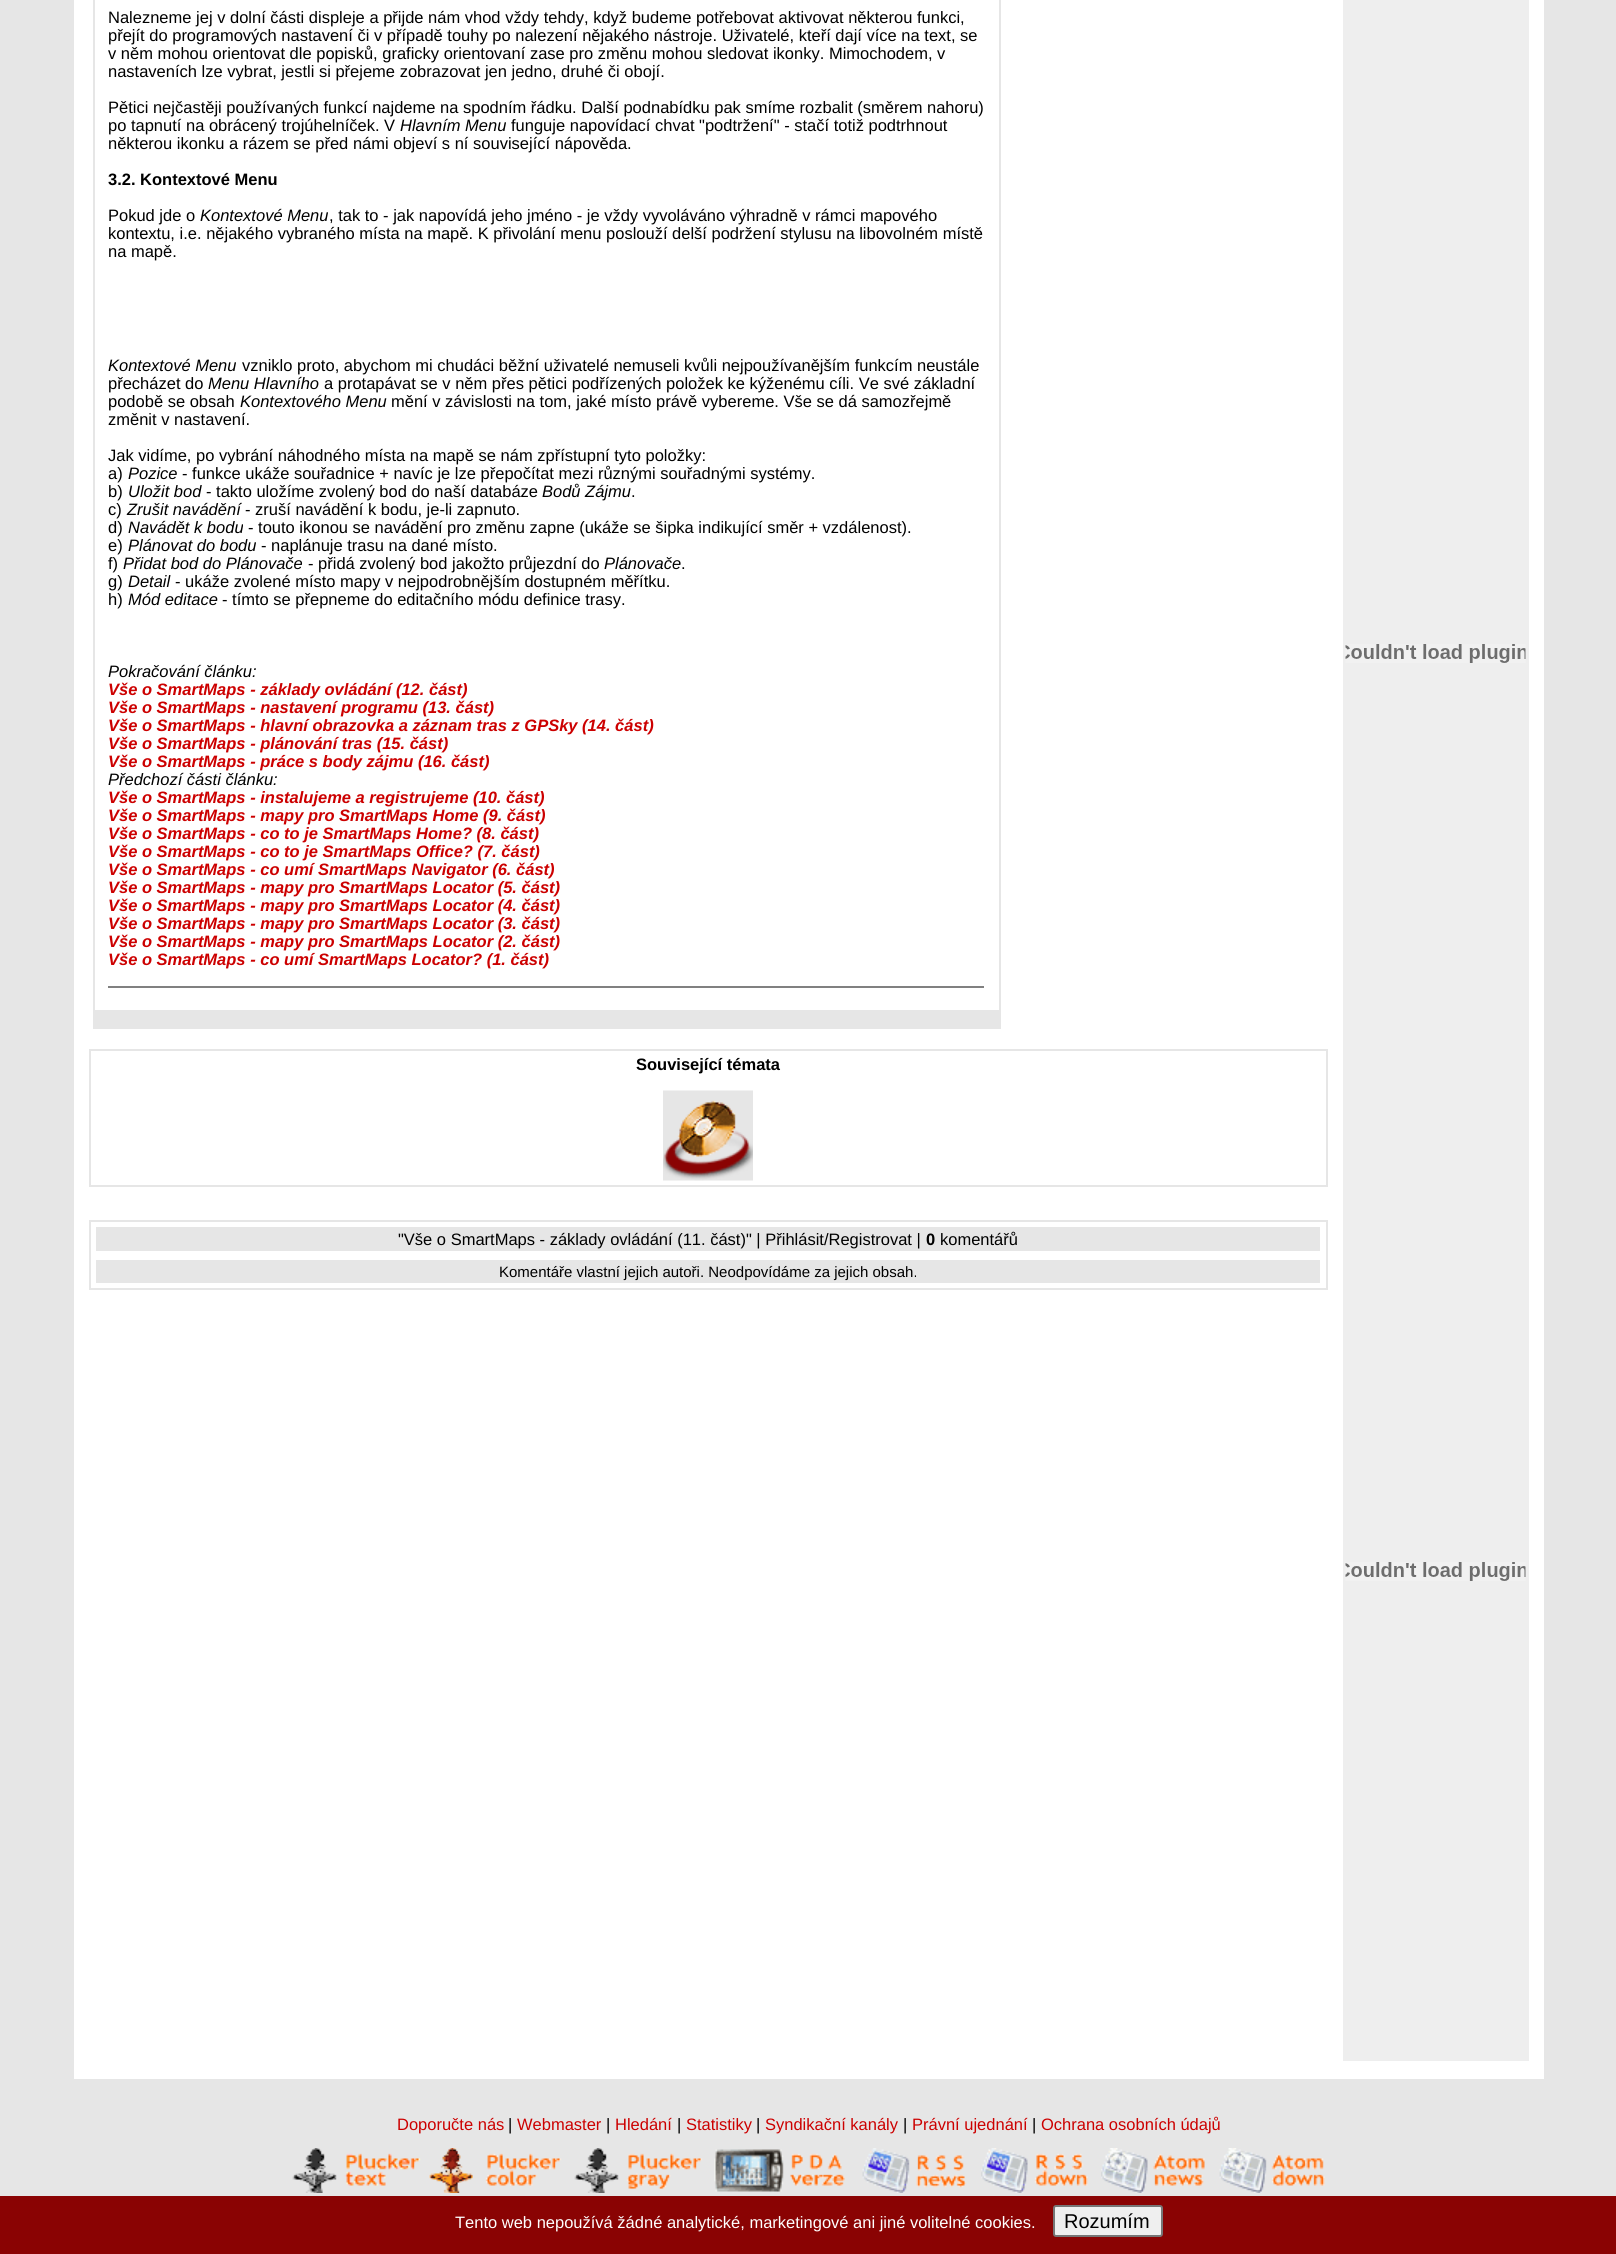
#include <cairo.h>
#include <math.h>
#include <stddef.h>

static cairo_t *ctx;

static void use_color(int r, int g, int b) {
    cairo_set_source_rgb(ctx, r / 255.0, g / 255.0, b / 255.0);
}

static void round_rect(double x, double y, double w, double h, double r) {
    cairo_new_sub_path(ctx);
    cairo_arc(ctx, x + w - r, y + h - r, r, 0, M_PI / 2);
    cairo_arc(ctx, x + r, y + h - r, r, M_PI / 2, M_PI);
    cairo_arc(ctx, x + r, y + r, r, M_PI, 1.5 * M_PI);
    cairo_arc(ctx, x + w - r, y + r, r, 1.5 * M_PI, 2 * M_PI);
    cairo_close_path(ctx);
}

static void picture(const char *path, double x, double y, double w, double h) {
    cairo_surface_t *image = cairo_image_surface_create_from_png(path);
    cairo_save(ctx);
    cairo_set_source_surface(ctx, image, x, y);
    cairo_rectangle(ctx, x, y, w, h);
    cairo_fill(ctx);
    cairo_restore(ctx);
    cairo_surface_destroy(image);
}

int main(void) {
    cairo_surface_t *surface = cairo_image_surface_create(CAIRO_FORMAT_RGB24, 1616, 2254);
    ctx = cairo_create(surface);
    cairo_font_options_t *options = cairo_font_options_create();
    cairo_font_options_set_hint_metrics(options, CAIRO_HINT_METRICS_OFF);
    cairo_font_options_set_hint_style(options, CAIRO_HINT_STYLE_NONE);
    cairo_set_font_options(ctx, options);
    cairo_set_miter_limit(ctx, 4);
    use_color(230, 230, 230);
    cairo_paint(ctx);
    use_color(255, 255, 255);
    cairo_rectangle(ctx, 74, 0, 1269, 2061);
    cairo_fill(ctx);
    use_color(238, 238, 238);
    cairo_rectangle(ctx, 1343, 0, 186, 2061);
    cairo_fill(ctx);
    picture("img1.png", 1345, 644, 181, 19);
    picture("img1.png", 1345, 1562, 181, 19);
    use_color(255, 255, 255);
    cairo_rectangle(ctx, 1529, 0, 15, 2061);
    cairo_fill(ctx);
    use_color(230, 230, 230);
    cairo_rectangle(ctx, 93, 0, 908, 1029);
    cairo_fill(ctx);
    use_color(255, 255, 255);
    cairo_rectangle(ctx, 95, 0, 904, 1010);
    cairo_fill(ctx);
    cairo_select_font_face(ctx, "Liberation Sans", CAIRO_FONT_SLANT_NORMAL, CAIRO_FONT_WEIGHT_NORMAL);
    cairo_set_font_size(ctx, 16.5);
    use_color(0, 0, 0);
    cairo_move_to(ctx, 108, 23);
    cairo_show_text(ctx, "Nalezneme jej v dolní části displeje a přijde nám vhod vždy tehdy, když budeme potřebovat aktivovat některou funkci,");
    cairo_move_to(ctx, 108, 41);
    cairo_show_text(ctx, "přejít do programových nastavení či v případě touhy po nalezení nějakého nástroje. Uživatelé, kteří dají více na text, se");
    cairo_move_to(ctx, 108, 59);
    cairo_show_text(ctx, "v něm mohou orientovat dle popisků, graficky orientovaní zase pro změnu mohou sledovat ikonky. Mimochodem, v");
    cairo_move_to(ctx, 108, 77);
    cairo_show_text(ctx, "nastaveních lze vybrat, jestli si přejeme zobrazovat jen jedno, druhé či obojí.");
    cairo_move_to(ctx, 108, 113);
    cairo_show_text(ctx, "Pětici nejčastěji používaných funkcí najdeme na spodním řádku. Další podnabídku pak smíme rozbalit (směrem nahoru)");
    cairo_move_to(ctx, 108, 131);
    cairo_show_text(ctx, "po tapnutí na obrácený trojúhelníček. V");
    cairo_select_font_face(ctx, "Liberation Sans", CAIRO_FONT_SLANT_ITALIC, CAIRO_FONT_WEIGHT_NORMAL);
    cairo_move_to(ctx, 400, 131);
    cairo_show_text(ctx, "Hlavním Menu");
    cairo_select_font_face(ctx, "Liberation Sans", CAIRO_FONT_SLANT_NORMAL, CAIRO_FONT_WEIGHT_NORMAL);
    cairo_move_to(ctx, 511, 131);
    cairo_show_text(ctx, "funguje napovídací chvat \"podtržení\" - stačí totiž podtrhnout");
    cairo_move_to(ctx, 108, 149);
    cairo_show_text(ctx, "některou ikonku a rázem se před námi objeví s ní související nápověda.");
    cairo_select_font_face(ctx, "Liberation Sans", CAIRO_FONT_SLANT_NORMAL, CAIRO_FONT_WEIGHT_BOLD);
    cairo_move_to(ctx, 108, 185);
    cairo_show_text(ctx, "3.2. Kontextové Menu");
    cairo_select_font_face(ctx, "Liberation Sans", CAIRO_FONT_SLANT_NORMAL, CAIRO_FONT_WEIGHT_NORMAL);
    cairo_move_to(ctx, 108, 221);
    cairo_show_text(ctx, "Pokud jde o");
    cairo_select_font_face(ctx, "Liberation Sans", CAIRO_FONT_SLANT_ITALIC, CAIRO_FONT_WEIGHT_NORMAL);
    cairo_move_to(ctx, 200, 221);
    cairo_show_text(ctx, "Kontextové Menu");
    cairo_select_font_face(ctx, "Liberation Sans", CAIRO_FONT_SLANT_NORMAL, CAIRO_FONT_WEIGHT_NORMAL);
    cairo_move_to(ctx, 329, 221);
    cairo_show_text(ctx, ", tak to - jak napovídá jeho jméno - je vždy vyvoláváno výhradně v rámci mapového");
    cairo_move_to(ctx, 108, 239);
    cairo_show_text(ctx, "kontextu, i.e. nějakého vybraného místa na mapě. K přivolání menu poslouží delší podržení stylusu na libovolném místě");
    cairo_move_to(ctx, 108, 257);
    cairo_show_text(ctx, "na mapě.");
    cairo_select_font_face(ctx, "Liberation Sans", CAIRO_FONT_SLANT_ITALIC, CAIRO_FONT_WEIGHT_NORMAL);
    cairo_move_to(ctx, 108, 371);
    cairo_show_text(ctx, "Kontextové Menu");
    cairo_select_font_face(ctx, "Liberation Sans", CAIRO_FONT_SLANT_NORMAL, CAIRO_FONT_WEIGHT_NORMAL);
    cairo_move_to(ctx, 242, 371);
    cairo_show_text(ctx, "vzniklo proto, abychom mi chudáci běžní uživatelé nemuseli kvůli nejpoužívanějším funkcím neustále");
    cairo_move_to(ctx, 108, 389);
    cairo_show_text(ctx, "přecházet do");
    cairo_select_font_face(ctx, "Liberation Sans", CAIRO_FONT_SLANT_ITALIC, CAIRO_FONT_WEIGHT_NORMAL);
    cairo_move_to(ctx, 208, 389);
    cairo_show_text(ctx, "Menu Hlavního");
    cairo_select_font_face(ctx, "Liberation Sans", CAIRO_FONT_SLANT_NORMAL, CAIRO_FONT_WEIGHT_NORMAL);
    cairo_move_to(ctx, 324, 389);
    cairo_show_text(ctx, "a protapávat se v něm přes pětici podřízených položek ke kýženému cíli. Ve své základní");
    cairo_move_to(ctx, 108, 407);
    cairo_show_text(ctx, "podobě se obsah");
    cairo_select_font_face(ctx, "Liberation Sans", CAIRO_FONT_SLANT_ITALIC, CAIRO_FONT_WEIGHT_NORMAL);
    cairo_move_to(ctx, 240, 407);
    cairo_show_text(ctx, "Kontextového Menu");
    cairo_select_font_face(ctx, "Liberation Sans", CAIRO_FONT_SLANT_NORMAL, CAIRO_FONT_WEIGHT_NORMAL);
    cairo_move_to(ctx, 391, 407);
    cairo_show_text(ctx, "mění v závislosti na tom, jaké místo právě vybereme. Vše se dá samozřejmě");
    cairo_move_to(ctx, 108, 425);
    cairo_show_text(ctx, "změnit v nastavení.");
    cairo_move_to(ctx, 108, 461);
    cairo_show_text(ctx, "Jak vidíme, po vybrání náhodného místa na mapě se nám zpřístupní tyto položky:");
    cairo_move_to(ctx, 108, 479);
    cairo_show_text(ctx, "a)");
    cairo_select_font_face(ctx, "Liberation Sans", CAIRO_FONT_SLANT_ITALIC, CAIRO_FONT_WEIGHT_NORMAL);
    cairo_move_to(ctx, 128, 479);
    cairo_show_text(ctx, "Pozice");
    cairo_select_font_face(ctx, "Liberation Sans", CAIRO_FONT_SLANT_NORMAL, CAIRO_FONT_WEIGHT_NORMAL);
    cairo_move_to(ctx, 182, 479);
    cairo_show_text(ctx, "- funkce ukáže souřadnice + navíc je lze přepočítat mezi různými souřadnými systémy.");
    cairo_move_to(ctx, 108, 497);
    cairo_show_text(ctx, "b)");
    cairo_select_font_face(ctx, "Liberation Sans", CAIRO_FONT_SLANT_ITALIC, CAIRO_FONT_WEIGHT_NORMAL);
    cairo_move_to(ctx, 128, 497);
    cairo_show_text(ctx, "Uložit bod");
    cairo_select_font_face(ctx, "Liberation Sans", CAIRO_FONT_SLANT_NORMAL, CAIRO_FONT_WEIGHT_NORMAL);
    cairo_move_to(ctx, 206, 497);
    cairo_show_text(ctx, "- takto uložíme zvolený bod do naší databáze");
    cairo_select_font_face(ctx, "Liberation Sans", CAIRO_FONT_SLANT_ITALIC, CAIRO_FONT_WEIGHT_NORMAL);
    cairo_move_to(ctx, 542, 497);
    cairo_show_text(ctx, "Bodů Zájmu");
    cairo_select_font_face(ctx, "Liberation Sans", CAIRO_FONT_SLANT_NORMAL, CAIRO_FONT_WEIGHT_NORMAL);
    cairo_move_to(ctx, 631, 497);
    cairo_show_text(ctx, ".");
    cairo_move_to(ctx, 108, 515);
    cairo_show_text(ctx, "c)");
    cairo_select_font_face(ctx, "Liberation Sans", CAIRO_FONT_SLANT_ITALIC, CAIRO_FONT_WEIGHT_NORMAL);
    cairo_move_to(ctx, 127, 515);
    cairo_show_text(ctx, "Zrušit navádění");
    cairo_select_font_face(ctx, "Liberation Sans", CAIRO_FONT_SLANT_NORMAL, CAIRO_FONT_WEIGHT_NORMAL);
    cairo_move_to(ctx, 245, 515);
    cairo_show_text(ctx, "- zruší navádění k bodu, je-li zapnuto.");
    cairo_move_to(ctx, 108, 533);
    cairo_show_text(ctx, "d)");
    cairo_select_font_face(ctx, "Liberation Sans", CAIRO_FONT_SLANT_ITALIC, CAIRO_FONT_WEIGHT_NORMAL);
    cairo_move_to(ctx, 128, 533);
    cairo_show_text(ctx, "Navádět k bodu");
    cairo_select_font_face(ctx, "Liberation Sans", CAIRO_FONT_SLANT_NORMAL, CAIRO_FONT_WEIGHT_NORMAL);
    cairo_move_to(ctx, 248, 533);
    cairo_show_text(ctx, "- touto ikonou se navádění pro změnu zapne (ukáže se šipka indikující směr + vzdálenost).");
    cairo_move_to(ctx, 108, 551);
    cairo_show_text(ctx, "e)");
    cairo_select_font_face(ctx, "Liberation Sans", CAIRO_FONT_SLANT_ITALIC, CAIRO_FONT_WEIGHT_NORMAL);
    cairo_move_to(ctx, 128, 551);
    cairo_show_text(ctx, "Plánovat do bodu");
    cairo_select_font_face(ctx, "Liberation Sans", CAIRO_FONT_SLANT_NORMAL, CAIRO_FONT_WEIGHT_NORMAL);
    cairo_move_to(ctx, 261, 551);
    cairo_show_text(ctx, "- naplánuje trasu na dané místo.");
    cairo_move_to(ctx, 108, 569);
    cairo_show_text(ctx, "f)");
    cairo_select_font_face(ctx, "Liberation Sans", CAIRO_FONT_SLANT_ITALIC, CAIRO_FONT_WEIGHT_NORMAL);
    cairo_move_to(ctx, 123, 569);
    cairo_show_text(ctx, "Přidat bod do Plánovače");
    cairo_select_font_face(ctx, "Liberation Sans", CAIRO_FONT_SLANT_NORMAL, CAIRO_FONT_WEIGHT_NORMAL);
    cairo_move_to(ctx, 308, 569);
    cairo_show_text(ctx, "- přidá zvolený bod jakožto průjezdní do");
    cairo_select_font_face(ctx, "Liberation Sans", CAIRO_FONT_SLANT_ITALIC, CAIRO_FONT_WEIGHT_NORMAL);
    cairo_move_to(ctx, 604, 569);
    cairo_show_text(ctx, "Plánovače");
    cairo_select_font_face(ctx, "Liberation Sans", CAIRO_FONT_SLANT_NORMAL, CAIRO_FONT_WEIGHT_NORMAL);
    cairo_move_to(ctx, 681, 569);
    cairo_show_text(ctx, ".");
    cairo_move_to(ctx, 108, 587);
    cairo_show_text(ctx, "g)");
    cairo_select_font_face(ctx, "Liberation Sans", CAIRO_FONT_SLANT_ITALIC, CAIRO_FONT_WEIGHT_NORMAL);
    cairo_move_to(ctx, 128, 587);
    cairo_show_text(ctx, "Detail");
    cairo_select_font_face(ctx, "Liberation Sans", CAIRO_FONT_SLANT_NORMAL, CAIRO_FONT_WEIGHT_NORMAL);
    cairo_move_to(ctx, 175, 587);
    cairo_show_text(ctx, "- ukáže zvolené místo mapy v nejpodrobnějším dostupném měřítku.");
    cairo_move_to(ctx, 108, 605);
    cairo_show_text(ctx, "h)");
    cairo_select_font_face(ctx, "Liberation Sans", CAIRO_FONT_SLANT_ITALIC, CAIRO_FONT_WEIGHT_NORMAL);
    cairo_move_to(ctx, 128, 605);
    cairo_show_text(ctx, "Mód editace");
    cairo_select_font_face(ctx, "Liberation Sans", CAIRO_FONT_SLANT_NORMAL, CAIRO_FONT_WEIGHT_NORMAL);
    cairo_move_to(ctx, 222, 605);
    cairo_show_text(ctx, "- tímto se přepneme do editačního módu definice trasy.");
    cairo_select_font_face(ctx, "Liberation Sans", CAIRO_FONT_SLANT_ITALIC, CAIRO_FONT_WEIGHT_NORMAL);
    cairo_move_to(ctx, 108, 677);
    cairo_show_text(ctx, "Pokračování článku:");
    cairo_select_font_face(ctx, "Liberation Sans", CAIRO_FONT_SLANT_ITALIC, CAIRO_FONT_WEIGHT_BOLD);
    use_color(204, 0, 0);
    cairo_move_to(ctx, 108, 695);
    cairo_show_text(ctx, "Vše o SmartMaps - základy ovládání (12. část)");
    cairo_move_to(ctx, 108, 713);
    cairo_show_text(ctx, "Vše o SmartMaps - nastavení programu (13. část)");
    cairo_move_to(ctx, 108, 731);
    cairo_show_text(ctx, "Vše o SmartMaps - hlavní obrazovka a záznam tras z GPSky (14. část)");
    cairo_move_to(ctx, 108, 749);
    cairo_show_text(ctx, "Vše o SmartMaps - plánování tras (15. část)");
    cairo_move_to(ctx, 108, 767);
    cairo_show_text(ctx, "Vše o SmartMaps - práce s body zájmu (16. část)");
    cairo_select_font_face(ctx, "Liberation Sans", CAIRO_FONT_SLANT_ITALIC, CAIRO_FONT_WEIGHT_NORMAL);
    use_color(0, 0, 0);
    cairo_move_to(ctx, 108, 785);
    cairo_show_text(ctx, "Předchozí části článku:");
    cairo_select_font_face(ctx, "Liberation Sans", CAIRO_FONT_SLANT_ITALIC, CAIRO_FONT_WEIGHT_BOLD);
    use_color(204, 0, 0);
    cairo_move_to(ctx, 108, 803);
    cairo_show_text(ctx, "Vše o SmartMaps - instalujeme a registrujeme (10. část)");
    cairo_move_to(ctx, 108, 821);
    cairo_show_text(ctx, "Vše o SmartMaps - mapy pro SmartMaps Home (9. část)");
    cairo_move_to(ctx, 108, 839);
    cairo_show_text(ctx, "Vše o SmartMaps - co to je SmartMaps Home? (8. část)");
    cairo_move_to(ctx, 108, 857);
    cairo_show_text(ctx, "Vše o SmartMaps - co to je SmartMaps Office? (7. část)");
    cairo_move_to(ctx, 108, 875);
    cairo_show_text(ctx, "Vše o SmartMaps - co umí SmartMaps Navigator (6. část)");
    cairo_move_to(ctx, 108, 893);
    cairo_show_text(ctx, "Vše o SmartMaps - mapy pro SmartMaps Locator (5. část)");
    cairo_move_to(ctx, 108, 911);
    cairo_show_text(ctx, "Vše o SmartMaps - mapy pro SmartMaps Locator (4. část)");
    cairo_move_to(ctx, 108, 929);
    cairo_show_text(ctx, "Vše o SmartMaps - mapy pro SmartMaps Locator (3. část)");
    cairo_move_to(ctx, 108, 947);
    cairo_show_text(ctx, "Vše o SmartMaps - mapy pro SmartMaps Locator (2. část)");
    cairo_move_to(ctx, 108, 965);
    cairo_show_text(ctx, "Vše o SmartMaps - co umí SmartMaps Locator? (1. část)");
    use_color(128, 128, 128);
    cairo_rectangle(ctx, 108, 986, 876, 2);
    cairo_fill(ctx);
    cairo_rectangle(ctx, 90, 1050, 1237, 136);
    use_color(230, 230, 230);
    cairo_stroke(ctx);
    cairo_select_font_face(ctx, "Liberation Sans", CAIRO_FONT_SLANT_NORMAL, CAIRO_FONT_WEIGHT_BOLD);
    use_color(0, 0, 0);
    cairo_move_to(ctx, 636, 1070);
    cairo_show_text(ctx, "Související témata");
    picture("img2.png", 663, 1090, 90, 91);
    cairo_rectangle(ctx, 90, 1221, 1237, 68);
    use_color(230, 230, 230);
    cairo_stroke(ctx);
    cairo_rectangle(ctx, 96, 1227, 1224, 24);
    cairo_fill(ctx);
    cairo_select_font_face(ctx, "Liberation Sans", CAIRO_FONT_SLANT_NORMAL, CAIRO_FONT_WEIGHT_NORMAL);
    use_color(0, 0, 0);
    cairo_move_to(ctx, 398, 1245);
    cairo_show_text(ctx, "\"Vše o SmartMaps - základy ovládání (11. část)\" | Přihlásit/Registrovat |");
    cairo_select_font_face(ctx, "Liberation Sans", CAIRO_FONT_SLANT_NORMAL, CAIRO_FONT_WEIGHT_BOLD);
    cairo_move_to(ctx, 926, 1245);
    cairo_show_text(ctx, "0");
    cairo_select_font_face(ctx, "Liberation Sans", CAIRO_FONT_SLANT_NORMAL, CAIRO_FONT_WEIGHT_NORMAL);
    cairo_move_to(ctx, 940, 1245);
    cairo_show_text(ctx, "komentářů");
    use_color(230, 230, 230);
    cairo_rectangle(ctx, 96, 1260, 1224, 23);
    cairo_fill(ctx);
    cairo_set_font_size(ctx, 15);
    use_color(0, 0, 0);
    cairo_move_to(ctx, 499, 1277);
    cairo_show_text(ctx, "Komentáře vlastní jejich autoři. Neodpovídáme za jejich obsah.");
    use_color(255, 255, 255);
    cairo_rectangle(ctx, 74, 2061, 1470, 18);
    cairo_fill(ctx);
    cairo_set_font_size(ctx, 16.5);
    use_color(204, 0, 0);
    cairo_move_to(ctx, 397, 2130);
    cairo_show_text(ctx, "Doporučte nás");
    use_color(0, 0, 0);
    cairo_move_to(ctx, 508, 2130);
    cairo_show_text(ctx, "|");
    use_color(204, 0, 0);
    cairo_move_to(ctx, 517, 2130);
    cairo_show_text(ctx, "Webmaster");
    use_color(0, 0, 0);
    cairo_move_to(ctx, 606, 2130);
    cairo_show_text(ctx, "|");
    use_color(204, 0, 0);
    cairo_move_to(ctx, 615, 2130);
    cairo_show_text(ctx, "Hledání");
    use_color(0, 0, 0);
    cairo_move_to(ctx, 677, 2130);
    cairo_show_text(ctx, "|");
    use_color(204, 0, 0);
    cairo_move_to(ctx, 686, 2130);
    cairo_show_text(ctx, "Statistiky");
    use_color(0, 0, 0);
    cairo_move_to(ctx, 756, 2130);
    cairo_show_text(ctx, "|");
    use_color(204, 0, 0);
    cairo_move_to(ctx, 765, 2130);
    cairo_show_text(ctx, "Syndikační kanály");
    use_color(0, 0, 0);
    cairo_move_to(ctx, 903, 2130);
    cairo_show_text(ctx, "|");
    use_color(204, 0, 0);
    cairo_move_to(ctx, 912, 2130);
    cairo_show_text(ctx, "Právní ujednání");
    use_color(0, 0, 0);
    cairo_move_to(ctx, 1032, 2130);
    cairo_show_text(ctx, "|");
    use_color(204, 0, 0);
    cairo_move_to(ctx, 1041, 2130);
    cairo_show_text(ctx, "Ochrana osobních údajů");
    picture("img3.png", 292, 2148, 129, 45);
    picture("img4.png", 429, 2148, 133, 45);
    picture("img5.png", 574, 2148, 129, 45);
    picture("img6.png", 714, 2149, 131, 43);
    picture("img7.png", 862, 2148, 105, 45);
    picture("img8.png", 981, 2148, 107, 45);
    picture("img9.png", 1101, 2148, 104, 45);
    picture("img10.png", 1219, 2148, 106, 45);
    use_color(138, 3, 3);
    cairo_rectangle(ctx, 0, 2196, 1616, 58);
    cairo_fill(ctx);
    use_color(255, 255, 255);
    cairo_move_to(ctx, 455, 2228);
    cairo_show_text(ctx, "Tento web nepoužívá žádné analytické, marketingové ani jiné volitelné cookies.");
    use_color(239, 239, 239);
    round_rect(1054, 2206, 108, 30, 2);
    cairo_fill_preserve(ctx);
    use_color(118, 118, 118);
    cairo_stroke(ctx);
    cairo_set_font_size(ctx, 20);
    use_color(0, 0, 0);
    cairo_move_to(ctx, 1064, 2228);
    cairo_show_text(ctx, "Rozumím");
    cairo_surface_write_to_png(surface, "result.png");
    cairo_font_options_destroy(options);
    cairo_destroy(ctx);
    cairo_surface_destroy(surface);
    return 0;
}
